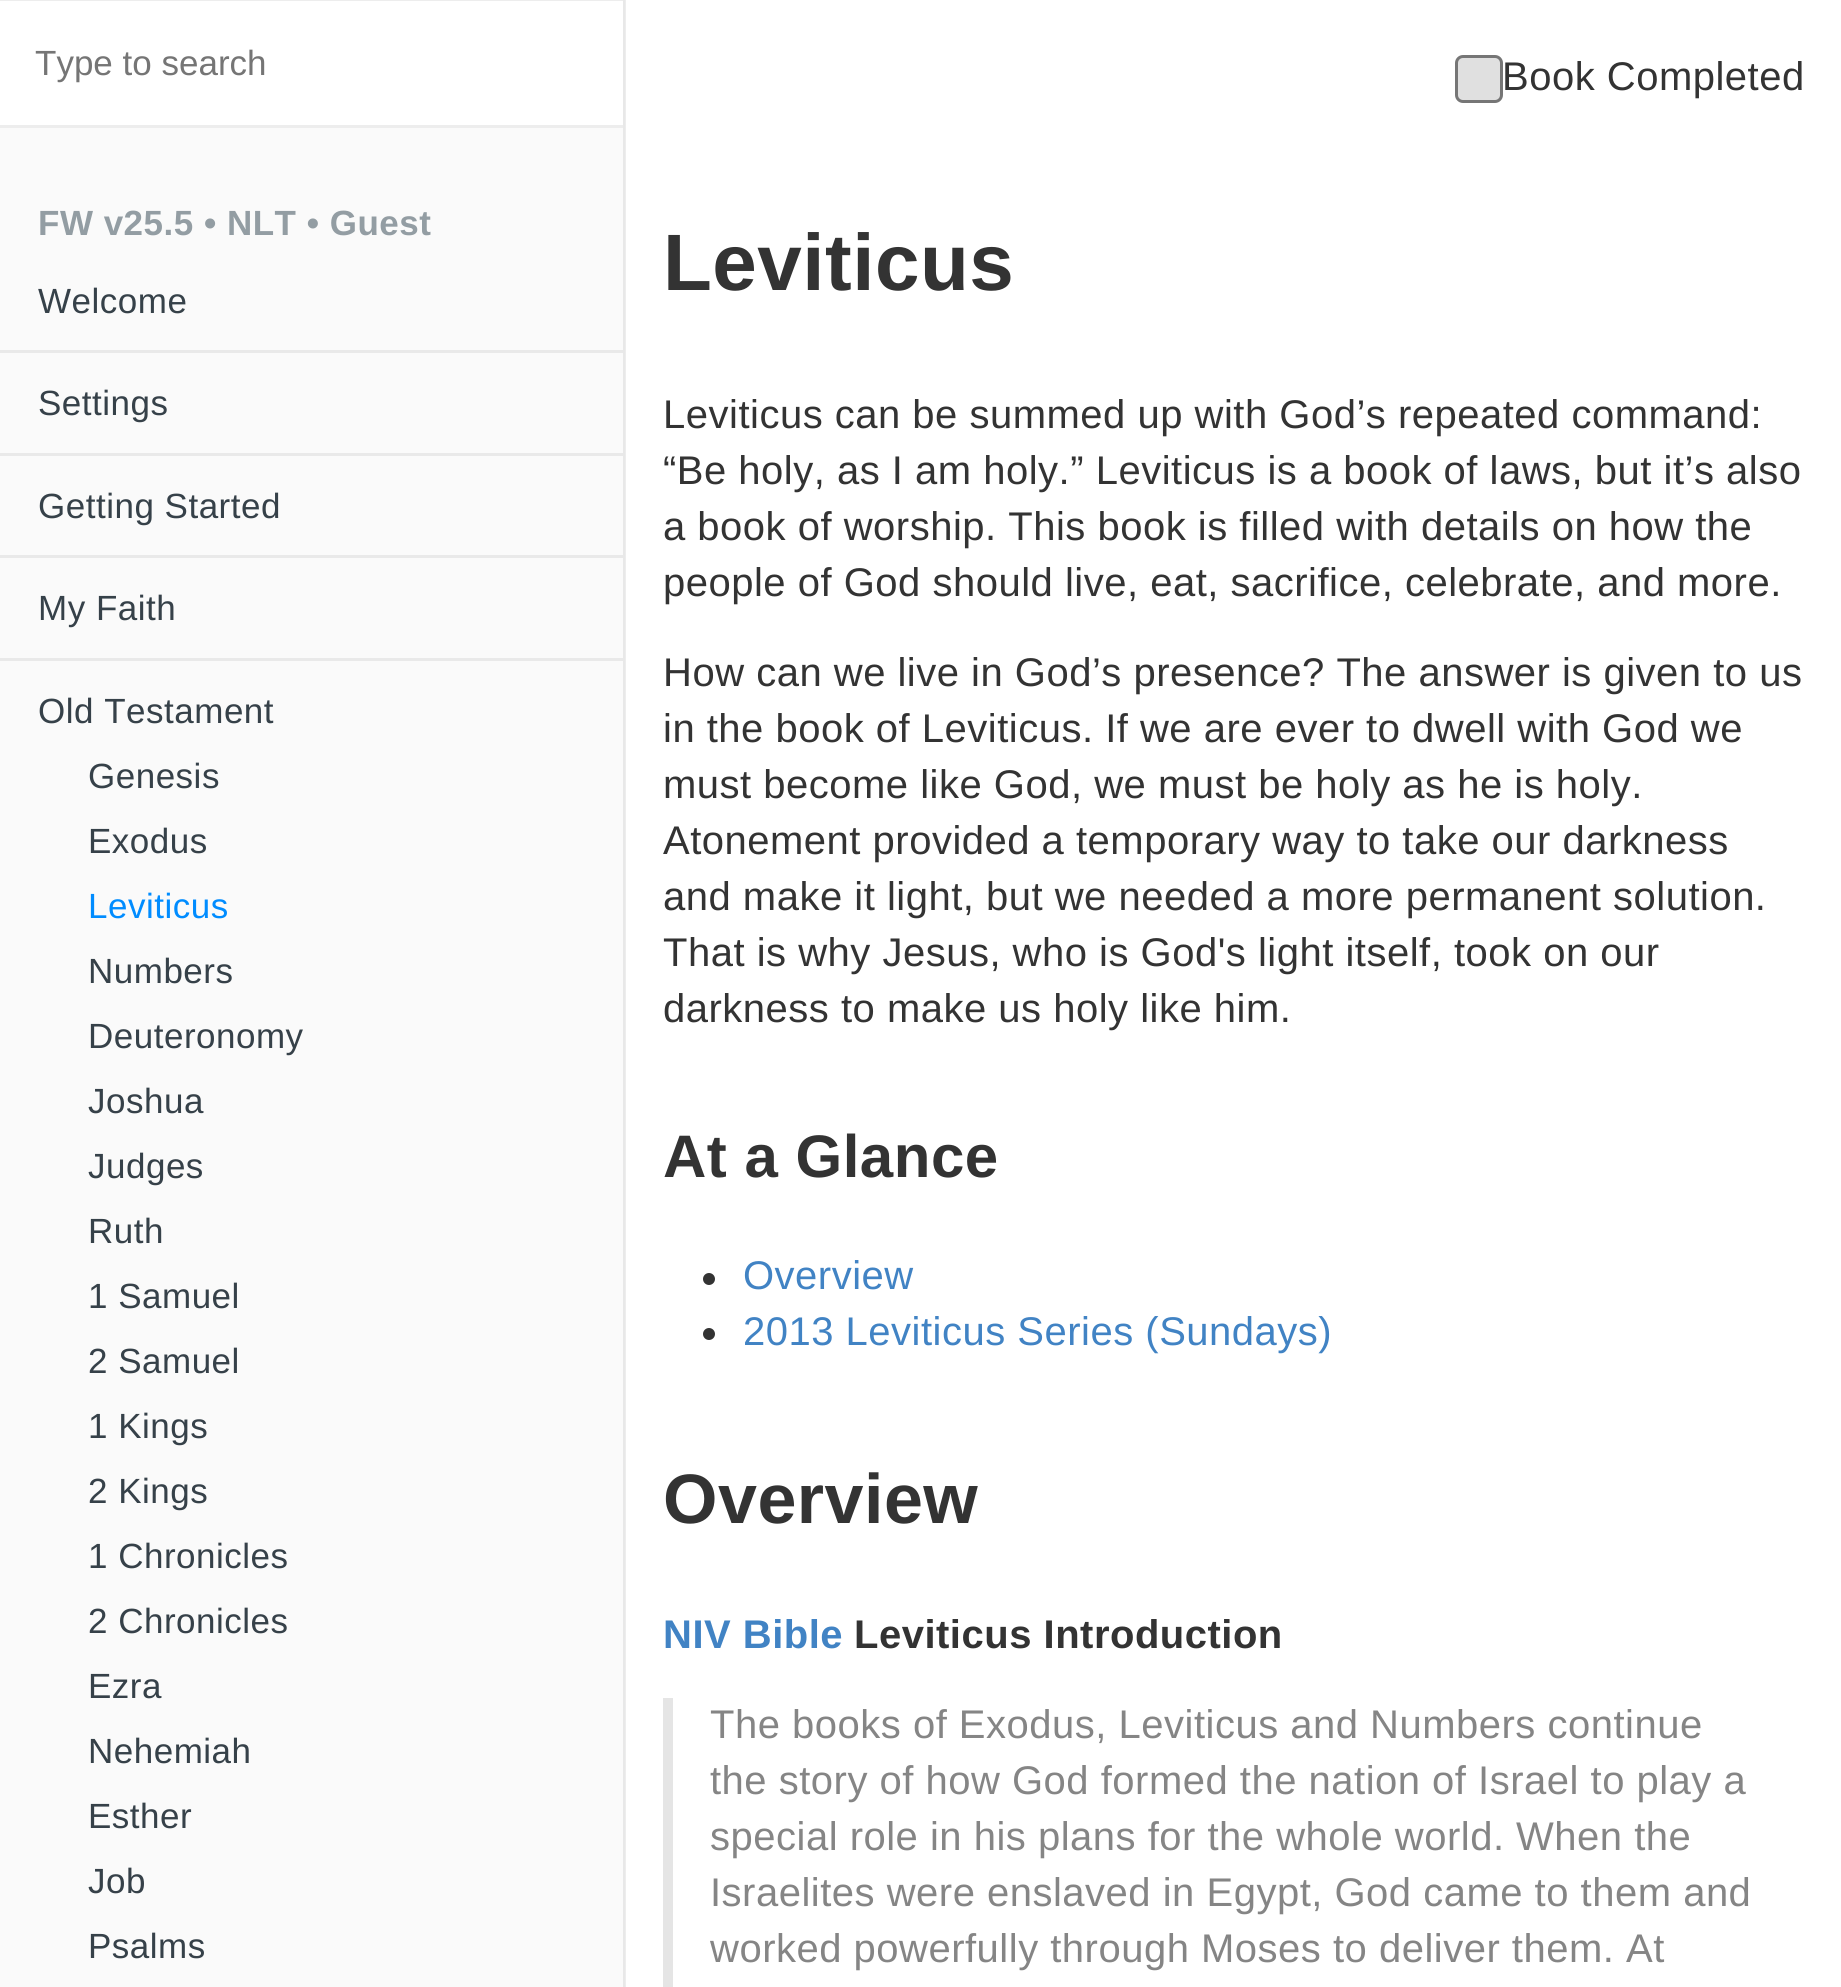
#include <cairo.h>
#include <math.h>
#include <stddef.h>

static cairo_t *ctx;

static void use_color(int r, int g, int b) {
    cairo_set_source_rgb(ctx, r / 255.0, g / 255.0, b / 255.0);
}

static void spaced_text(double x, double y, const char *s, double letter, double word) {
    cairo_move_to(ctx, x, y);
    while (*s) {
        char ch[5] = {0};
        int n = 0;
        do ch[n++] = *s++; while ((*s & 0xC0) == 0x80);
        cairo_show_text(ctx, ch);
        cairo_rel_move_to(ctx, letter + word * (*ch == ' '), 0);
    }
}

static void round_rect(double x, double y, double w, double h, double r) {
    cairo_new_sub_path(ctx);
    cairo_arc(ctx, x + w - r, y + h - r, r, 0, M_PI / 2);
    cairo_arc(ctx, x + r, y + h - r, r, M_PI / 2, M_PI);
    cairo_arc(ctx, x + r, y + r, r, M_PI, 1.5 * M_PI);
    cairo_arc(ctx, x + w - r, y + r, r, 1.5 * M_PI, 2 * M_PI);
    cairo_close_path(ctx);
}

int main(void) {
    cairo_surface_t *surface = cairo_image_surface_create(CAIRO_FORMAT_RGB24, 1841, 1987);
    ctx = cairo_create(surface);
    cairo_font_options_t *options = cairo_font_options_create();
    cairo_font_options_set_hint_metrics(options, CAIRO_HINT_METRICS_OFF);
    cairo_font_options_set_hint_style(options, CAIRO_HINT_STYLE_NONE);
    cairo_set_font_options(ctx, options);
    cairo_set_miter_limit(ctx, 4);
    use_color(255, 255, 255);
    cairo_paint(ctx);
    use_color(237, 237, 237);
    cairo_rectangle(ctx, 625, 0, 1, 1987);
    cairo_fill(ctx);
    use_color(250, 250, 250);
    cairo_rectangle(ctx, 0, 128, 623, 1859);
    cairo_fill(ctx);
    use_color(232, 232, 232);
    cairo_rectangle(ctx, 623, 0, 2, 1987);
    cairo_fill(ctx);
    use_color(237, 237, 237);
    cairo_rectangle(ctx, 0, 0, 623, 1);
    cairo_fill(ctx);
    cairo_rectangle(ctx, 0, 125, 623, 3);
    cairo_fill(ctx);
    cairo_select_font_face(ctx, "Liberation Sans", CAIRO_FONT_SLANT_NORMAL, CAIRO_FONT_WEIGHT_NORMAL);
    cairo_set_font_size(ctx, 35);
    use_color(117, 117, 117);
    cairo_move_to(ctx, 35, 75);
    cairo_show_text(ctx, "Type to search");
    cairo_select_font_face(ctx, "Liberation Sans", CAIRO_FONT_SLANT_NORMAL, CAIRO_FONT_WEIGHT_BOLD);
    use_color(147, 157, 163);
    spaced_text(38, 235, "FW v25.5 • NLT • Guest", 0.5, 0);
    cairo_select_font_face(ctx, "Liberation Sans", CAIRO_FONT_SLANT_NORMAL, CAIRO_FONT_WEIGHT_NORMAL);
    use_color(54, 65, 73);
    spaced_text(38, 313, "Welcome", 0.5, 0);
    use_color(233, 233, 233);
    cairo_rectangle(ctx, 0, 350, 623, 3);
    cairo_fill(ctx);
    use_color(54, 65, 73);
    spaced_text(38, 415, "Settings", 0.5, 0);
    use_color(233, 233, 233);
    cairo_rectangle(ctx, 0, 453, 623, 3);
    cairo_fill(ctx);
    use_color(54, 65, 73);
    spaced_text(38, 518, "Getting Started", 0.5, 0);
    use_color(233, 233, 233);
    cairo_rectangle(ctx, 0, 555, 623, 3);
    cairo_fill(ctx);
    use_color(54, 65, 73);
    spaced_text(38, 620, "My Faith", 0.5, 0);
    use_color(233, 233, 233);
    cairo_rectangle(ctx, 0, 658, 623, 3);
    cairo_fill(ctx);
    use_color(54, 65, 73);
    spaced_text(38, 723, "Old Testament", 0.5, 0);
    spaced_text(88, 788, "Genesis", 0.5, 0);
    spaced_text(88, 853, "Exodus", 0.5, 0);
    use_color(0, 140, 255);
    spaced_text(88, 918, "Leviticus", 0.5, 0);
    use_color(54, 65, 73);
    spaced_text(88, 983, "Numbers", 0.5, 0);
    spaced_text(88, 1048, "Deuteronomy", 0.5, 0);
    spaced_text(88, 1113, "Joshua", 0.5, 0);
    spaced_text(88, 1178, "Judges", 0.5, 0);
    spaced_text(88, 1243, "Ruth", 0.5, 0);
    spaced_text(88, 1308, "1 Samuel", 0.5, 0);
    spaced_text(88, 1373, "2 Samuel", 0.5, 0);
    spaced_text(88, 1438, "1 Kings", 0.5, 0);
    spaced_text(88, 1503, "2 Kings", 0.5, 0);
    spaced_text(88, 1568, "1 Chronicles", 0.5, 0);
    spaced_text(88, 1633, "2 Chronicles", 0.5, 0);
    spaced_text(88, 1698, "Ezra", 0.5, 0);
    spaced_text(88, 1763, "Nehemiah", 0.5, 0);
    spaced_text(88, 1828, "Esther", 0.5, 0);
    spaced_text(88, 1893, "Job", 0.5, 0);
    spaced_text(88, 1958, "Psalms", 0.5, 0);
    use_color(224, 224, 224);
    round_rect(1456.5, 56.5, 45, 45, 6.5);
    cairo_fill_preserve(ctx);
    use_color(118, 118, 118);
    cairo_set_line_width(ctx, 3);
    cairo_stroke(ctx);
    cairo_set_font_size(ctx, 40);
    use_color(51, 51, 51);
    spaced_text(1502, 90, "Book Completed", 0.5, 0);
    cairo_select_font_face(ctx, "Liberation Sans", CAIRO_FONT_SLANT_NORMAL, CAIRO_FONT_WEIGHT_BOLD);
    cairo_set_font_size(ctx, 80);
    spaced_text(663, 290, "Leviticus", 0.5, 0);
    cairo_select_font_face(ctx, "Liberation Sans", CAIRO_FONT_SLANT_NORMAL, CAIRO_FONT_WEIGHT_NORMAL);
    cairo_set_font_size(ctx, 40);
    spaced_text(663, 428, "Leviticus can be summed up with God’s repeated command:", 0.5, 0);
    spaced_text(663, 484, "“Be holy, as I am holy.” Leviticus is a book of laws, but it’s also", 0.5, 0);
    spaced_text(663, 540, "a book of worship. This book is filled with details on how the", 0.5, 0);
    spaced_text(663, 596, "people of God should live, eat, sacrifice, celebrate, and more.", 0.5, 0);
    spaced_text(663, 686, "How can we live in God’s presence? The answer is given to us", 0.5, 0);
    spaced_text(663, 742, "in the book of Leviticus. If we are ever to dwell with God we", 0.5, 0);
    spaced_text(663, 798, "must become like God, we must be holy as he is holy.", 0.5, 0);
    spaced_text(663, 854, "Atonement provided a temporary way to take our darkness", 0.5, 0);
    spaced_text(663, 910, "and make it light, but we needed a more permanent solution.", 0.5, 0);
    spaced_text(663, 966, "That is why Jesus, who is God's light itself, took on our", 0.5, 0);
    spaced_text(663, 1022, "darkness to make us holy like him.", 0.5, 0);
    cairo_select_font_face(ctx, "Liberation Sans", CAIRO_FONT_SLANT_NORMAL, CAIRO_FONT_WEIGHT_BOLD);
    cairo_set_font_size(ctx, 60);
    spaced_text(663, 1177, "At a Glance", 0.5, 0);
    cairo_new_path(ctx);
    cairo_arc(ctx, 709, 1279, 6, 0, 2 * M_PI);
    cairo_fill(ctx);
    cairo_select_font_face(ctx, "Liberation Sans", CAIRO_FONT_SLANT_NORMAL, CAIRO_FONT_WEIGHT_NORMAL);
    cairo_set_font_size(ctx, 40);
    use_color(65, 131, 196);
    spaced_text(743, 1289, "Overview", 0.5, 0);
    use_color(51, 51, 51);
    cairo_new_path(ctx);
    cairo_arc(ctx, 709, 1334, 6, 0, 2 * M_PI);
    cairo_fill(ctx);
    use_color(65, 131, 196);
    spaced_text(743, 1345, "2013 Leviticus Series (Sundays)", 0.5, 0);
    cairo_select_font_face(ctx, "Liberation Sans", CAIRO_FONT_SLANT_NORMAL, CAIRO_FONT_WEIGHT_BOLD);
    cairo_set_font_size(ctx, 70);
    use_color(51, 51, 51);
    spaced_text(663, 1523, "Overview", 0.5, 0);
    cairo_set_font_size(ctx, 40);
    use_color(65, 131, 196);
    spaced_text(663, 1648, "NIV Bible", 0.5, 0);
    use_color(51, 51, 51);
    spaced_text(854, 1648, "Leviticus Introduction", 0.5, 0);
    use_color(229, 229, 229);
    cairo_rectangle(ctx, 663, 1698, 10, 289);
    cairo_fill(ctx);
    cairo_select_font_face(ctx, "Liberation Sans", CAIRO_FONT_SLANT_NORMAL, CAIRO_FONT_WEIGHT_NORMAL);
    use_color(133, 133, 133);
    spaced_text(710, 1738, "The books of Exodus, Leviticus and Numbers continue", 0.5, 0);
    spaced_text(710, 1794, "the story of how God formed the nation of Israel to play a", 0.5, 0);
    spaced_text(710, 1850, "special role in his plans for the whole world. When the", 0.5, 0);
    spaced_text(710, 1906, "Israelites were enslaved in Egypt, God came to them and", 0.5, 0);
    spaced_text(710, 1962, "worked powerfully through Moses to deliver them. At", 0.5, 0);
    cairo_surface_write_to_png(surface, "result.png");
    cairo_font_options_destroy(options);
    cairo_destroy(ctx);
    cairo_surface_destroy(surface);
    return 0;
}
